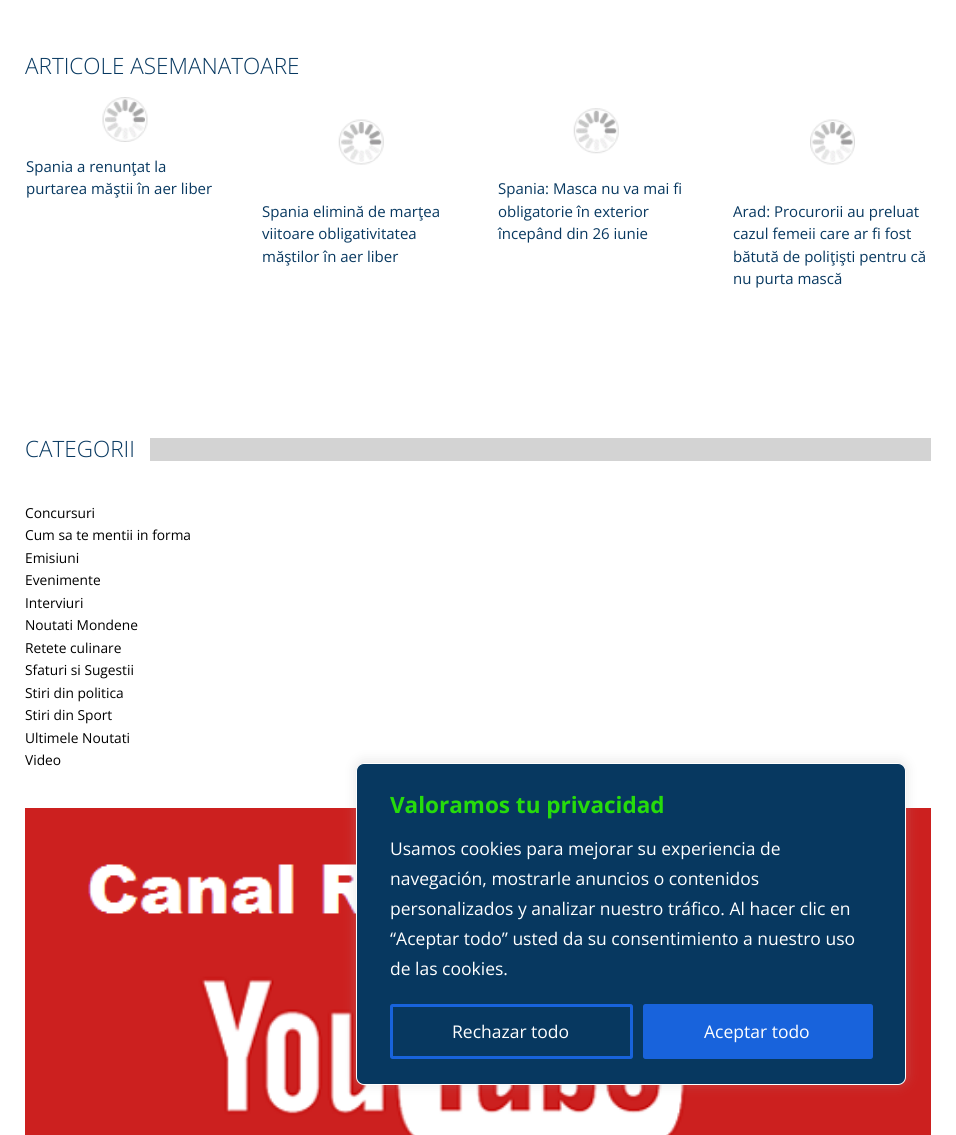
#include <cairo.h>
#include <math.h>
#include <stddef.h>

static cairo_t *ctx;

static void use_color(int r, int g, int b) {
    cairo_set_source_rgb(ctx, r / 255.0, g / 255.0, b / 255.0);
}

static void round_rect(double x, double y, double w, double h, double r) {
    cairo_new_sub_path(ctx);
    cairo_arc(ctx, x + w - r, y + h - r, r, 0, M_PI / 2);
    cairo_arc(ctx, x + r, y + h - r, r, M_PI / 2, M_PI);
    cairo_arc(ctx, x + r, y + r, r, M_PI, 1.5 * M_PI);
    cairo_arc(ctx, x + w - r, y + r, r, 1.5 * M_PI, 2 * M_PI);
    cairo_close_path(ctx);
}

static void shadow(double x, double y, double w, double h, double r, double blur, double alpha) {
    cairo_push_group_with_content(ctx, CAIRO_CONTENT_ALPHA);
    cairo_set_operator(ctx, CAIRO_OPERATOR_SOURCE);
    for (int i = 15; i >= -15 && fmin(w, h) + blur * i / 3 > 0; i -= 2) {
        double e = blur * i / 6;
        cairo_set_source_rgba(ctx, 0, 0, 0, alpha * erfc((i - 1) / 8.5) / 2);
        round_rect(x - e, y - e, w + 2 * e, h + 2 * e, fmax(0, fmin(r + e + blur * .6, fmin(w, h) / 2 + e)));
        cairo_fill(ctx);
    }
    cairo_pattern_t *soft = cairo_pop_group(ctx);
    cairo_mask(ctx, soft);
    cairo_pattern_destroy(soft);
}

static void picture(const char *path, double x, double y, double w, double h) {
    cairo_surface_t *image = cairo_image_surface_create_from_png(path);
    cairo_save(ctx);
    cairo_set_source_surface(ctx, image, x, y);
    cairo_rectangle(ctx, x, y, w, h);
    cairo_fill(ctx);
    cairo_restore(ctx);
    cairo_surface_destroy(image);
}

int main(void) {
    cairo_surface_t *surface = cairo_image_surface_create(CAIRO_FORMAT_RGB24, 956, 1135);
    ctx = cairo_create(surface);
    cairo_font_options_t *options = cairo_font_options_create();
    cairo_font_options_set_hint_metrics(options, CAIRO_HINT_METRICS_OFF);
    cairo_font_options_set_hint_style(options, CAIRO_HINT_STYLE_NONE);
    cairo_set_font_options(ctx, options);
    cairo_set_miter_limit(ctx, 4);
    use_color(255, 255, 255);
    cairo_paint(ctx);
    cairo_select_font_face(ctx, "Open Sans Light", CAIRO_FONT_SLANT_NORMAL, CAIRO_FONT_WEIGHT_NORMAL);
    cairo_set_font_size(ctx, 22.5);
    use_color(7, 56, 96);
    cairo_move_to(ctx, 25, 74);
    cairo_show_text(ctx, "ARTICOLE ASEMANATOARE");
    picture("img1.png", 102, 97, 46, 45);
    cairo_select_font_face(ctx, "Open Sans", CAIRO_FONT_SLANT_NORMAL, CAIRO_FONT_WEIGHT_NORMAL);
    cairo_set_font_size(ctx, 15);
    cairo_move_to(ctx, 26, 172);
    cairo_show_text(ctx, "Spania a renunţat la");
    cairo_move_to(ctx, 26, 194);
    cairo_show_text(ctx, "purtarea măştii în aer liber");
    picture("img2.png", 338, 119, 46, 46);
    cairo_move_to(ctx, 262, 217);
    cairo_show_text(ctx, "Spania elimină de marţea");
    cairo_move_to(ctx, 262, 239);
    cairo_show_text(ctx, "viitoare obligativitatea");
    cairo_move_to(ctx, 262, 262);
    cairo_show_text(ctx, "măştilor în aer liber");
    picture("img3.png", 573, 108, 46, 46);
    cairo_move_to(ctx, 498, 194);
    cairo_show_text(ctx, "Spania: Masca nu va mai fi");
    cairo_move_to(ctx, 498, 217);
    cairo_show_text(ctx, "obligatorie în exterior");
    cairo_move_to(ctx, 498, 239);
    cairo_show_text(ctx, "începând din 26 iunie");
    picture("img4.png", 810, 119, 45, 46);
    cairo_move_to(ctx, 733, 217);
    cairo_show_text(ctx, "Arad: Procurorii au preluat");
    cairo_move_to(ctx, 733, 239);
    cairo_show_text(ctx, "cazul femeii care ar fi fost");
    cairo_move_to(ctx, 733, 262);
    cairo_show_text(ctx, "bătută de poliţişti pentru că");
    cairo_move_to(ctx, 733, 284);
    cairo_show_text(ctx, "nu purta mască");
    cairo_select_font_face(ctx, "Open Sans Light", CAIRO_FONT_SLANT_NORMAL, CAIRO_FONT_WEIGHT_NORMAL);
    cairo_set_font_size(ctx, 22.5);
    cairo_move_to(ctx, 25, 457);
    cairo_show_text(ctx, "CATEGORII");
    use_color(211, 211, 211);
    cairo_rectangle(ctx, 150, 438, 781, 23);
    cairo_fill(ctx);
    cairo_select_font_face(ctx, "Open Sans", CAIRO_FONT_SLANT_NORMAL, CAIRO_FONT_WEIGHT_NORMAL);
    cairo_set_font_size(ctx, 13.75);
    use_color(0, 0, 0);
    cairo_move_to(ctx, 25, 518);
    cairo_show_text(ctx, "Concursuri");
    cairo_move_to(ctx, 25, 540);
    cairo_show_text(ctx, "Cum sa te mentii in forma");
    cairo_move_to(ctx, 25, 563);
    cairo_show_text(ctx, "Emisiuni");
    cairo_move_to(ctx, 25, 585);
    cairo_show_text(ctx, "Evenimente");
    cairo_move_to(ctx, 25, 608);
    cairo_show_text(ctx, "Interviuri");
    cairo_move_to(ctx, 25, 630);
    cairo_show_text(ctx, "Noutati Mondene");
    cairo_move_to(ctx, 25, 653);
    cairo_show_text(ctx, "Retete culinare");
    cairo_move_to(ctx, 25, 675);
    cairo_show_text(ctx, "Sfaturi si Sugestii");
    cairo_move_to(ctx, 25, 698);
    cairo_show_text(ctx, "Stiri din politica");
    cairo_move_to(ctx, 25, 720);
    cairo_show_text(ctx, "Stiri din Sport");
    cairo_move_to(ctx, 25, 743);
    cairo_show_text(ctx, "Ultimele Noutati");
    cairo_move_to(ctx, 25, 765);
    cairo_show_text(ctx, "Video");
    picture("img5.png", 25, 808, 906, 327);
    use_color(172, 171, 171);
    shadow(356, 761, 550, 323, 8, 6, 0.3);
    use_color(7, 56, 96);
    round_rect(356.5, 763.5, 549, 321, 7.5);
    cairo_fill_preserve(ctx);
    use_color(255, 255, 255);
    cairo_set_line_width(ctx, 1);
    cairo_stroke(ctx);
    cairo_select_font_face(ctx, "Open Sans", CAIRO_FONT_SLANT_NORMAL, CAIRO_FONT_WEIGHT_BOLD);
    cairo_set_font_size(ctx, 22.5);
    use_color(38, 220, 11);
    cairo_move_to(ctx, 390, 813);
    cairo_show_text(ctx, "Valoramos tu privacidad");
    cairo_select_font_face(ctx, "Open Sans", CAIRO_FONT_SLANT_NORMAL, CAIRO_FONT_WEIGHT_NORMAL);
    cairo_set_font_size(ctx, 17.5);
    use_color(255, 255, 255);
    cairo_move_to(ctx, 390, 855);
    cairo_show_text(ctx, "Usamos cookies para mejorar su experiencia de");
    cairo_move_to(ctx, 390, 885);
    cairo_show_text(ctx, "navegación, mostrarle anuncios o contenidos");
    cairo_move_to(ctx, 390, 915);
    cairo_show_text(ctx, "personalizados y analizar nuestro tráfico. Al hacer clic en");
    cairo_move_to(ctx, 390, 945);
    cairo_show_text(ctx, "“Aceptar todo” usted da su consentimiento a nuestro uso");
    cairo_move_to(ctx, 390, 975);
    cairo_show_text(ctx, "de las cookies.");
    round_rect(391.5, 1005.5, 240, 52, 1);
    use_color(24, 99, 220);
    cairo_set_line_width(ctx, 3);
    cairo_stroke(ctx);
    use_color(255, 255, 255);
    cairo_move_to(ctx, 452, 1038);
    cairo_show_text(ctx, "Rechazar todo");
    use_color(24, 99, 220);
    round_rect(644.5, 1005.5, 227, 52, 1);
    cairo_fill_preserve(ctx);
    cairo_stroke(ctx);
    use_color(255, 255, 255);
    cairo_move_to(ctx, 704, 1038);
    cairo_show_text(ctx, "Aceptar todo");
    cairo_surface_write_to_png(surface, "result.png");
    cairo_font_options_destroy(options);
    cairo_destroy(ctx);
    cairo_surface_destroy(surface);
    return 0;
}
